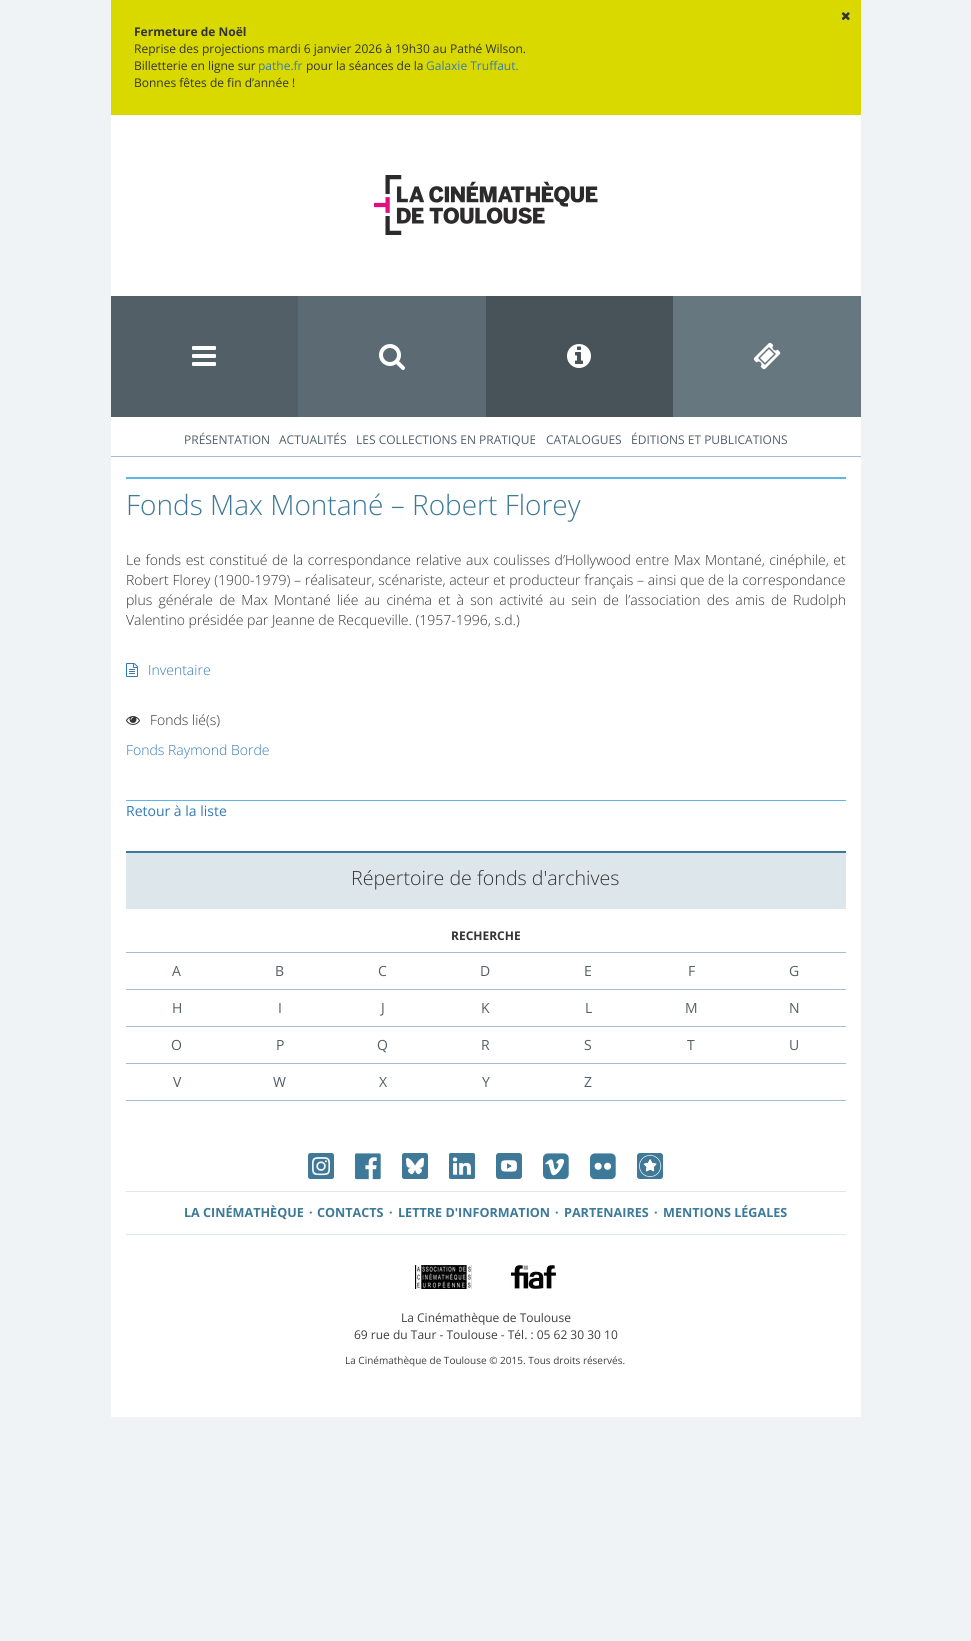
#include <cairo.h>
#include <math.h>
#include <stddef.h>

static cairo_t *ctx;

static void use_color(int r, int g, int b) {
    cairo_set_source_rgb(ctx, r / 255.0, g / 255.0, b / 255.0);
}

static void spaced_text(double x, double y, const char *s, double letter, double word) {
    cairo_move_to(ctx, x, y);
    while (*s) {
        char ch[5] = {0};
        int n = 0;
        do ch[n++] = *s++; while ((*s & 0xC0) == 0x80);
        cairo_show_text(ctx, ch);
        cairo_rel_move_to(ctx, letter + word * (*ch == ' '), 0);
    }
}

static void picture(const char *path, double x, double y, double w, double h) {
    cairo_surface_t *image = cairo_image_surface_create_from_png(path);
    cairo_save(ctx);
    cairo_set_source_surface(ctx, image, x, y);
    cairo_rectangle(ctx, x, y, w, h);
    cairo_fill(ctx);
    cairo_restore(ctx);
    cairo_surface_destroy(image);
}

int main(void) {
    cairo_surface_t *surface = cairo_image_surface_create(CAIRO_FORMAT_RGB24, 971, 1641);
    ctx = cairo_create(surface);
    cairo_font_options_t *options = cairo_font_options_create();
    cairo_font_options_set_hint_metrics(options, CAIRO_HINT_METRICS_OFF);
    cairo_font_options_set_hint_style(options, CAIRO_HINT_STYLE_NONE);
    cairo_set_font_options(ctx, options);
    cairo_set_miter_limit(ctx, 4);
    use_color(240, 243, 245);
    cairo_paint(ctx);
    use_color(255, 255, 255);
    cairo_rectangle(ctx, 111, 115, 750, 1302);
    cairo_fill(ctx);
    use_color(217, 217, 0);
    cairo_rectangle(ctx, 111, 0, 750, 115);
    cairo_fill(ctx);
    picture("img1.png", 841, 12, 9, 9);
    cairo_select_font_face(ctx, "Open Sans", CAIRO_FONT_SLANT_NORMAL, CAIRO_FONT_WEIGHT_BOLD);
    cairo_set_font_size(ctx, 12);
    use_color(51, 51, 51);
    cairo_move_to(ctx, 134, 36);
    cairo_show_text(ctx, "Fermeture de Noël");
    cairo_select_font_face(ctx, "Open Sans", CAIRO_FONT_SLANT_NORMAL, CAIRO_FONT_WEIGHT_NORMAL);
    cairo_move_to(ctx, 134, 53);
    cairo_show_text(ctx, "Reprise des projections mardi 6 janvier 2026 à 19h30 au Pathé Wilson.");
    cairo_move_to(ctx, 134, 70);
    cairo_show_text(ctx, "Billetterie en ligne sur");
    use_color(51, 122, 183);
    cairo_move_to(ctx, 258, 70);
    cairo_show_text(ctx, "pathe.fr");
    use_color(51, 51, 51);
    cairo_move_to(ctx, 306, 70);
    cairo_show_text(ctx, "pour la séances de la");
    use_color(51, 122, 183);
    cairo_move_to(ctx, 426, 70);
    cairo_show_text(ctx, "Galaxie Truffaut.");
    use_color(51, 51, 51);
    cairo_move_to(ctx, 134, 87);
    cairo_show_text(ctx, "Bonnes fêtes de fin d’année !");
    picture("img2.png", 374, 175, 224, 60);
    use_color(82, 95, 102);
    cairo_rectangle(ctx, 111, 296, 187, 121);
    cairo_fill(ctx);
    picture("img3.png", 192, 346, 24, 20);
    use_color(92, 107, 115);
    cairo_rectangle(ctx, 298, 296, 188, 121);
    cairo_fill(ctx);
    picture("img4.png", 379, 344, 26, 26);
    use_color(71, 83, 89);
    cairo_rectangle(ctx, 486, 296, 187, 121);
    cairo_fill(ctx);
    picture("img5.png", 567, 344, 24, 24);
    use_color(102, 119, 128);
    cairo_rectangle(ctx, 673, 296, 188, 121);
    cairo_fill(ctx);
    picture("img6.png", 753, 342, 28, 28);
    use_color(163, 190, 204);
    cairo_rectangle(ctx, 111, 456, 750, 1);
    cairo_fill(ctx);
    use_color(82, 95, 102);
    cairo_move_to(ctx, 184, 444);
    cairo_show_text(ctx, "PRÉSENTATION");
    cairo_move_to(ctx, 279, 444);
    cairo_show_text(ctx, "ACTUALITÉS");
    cairo_move_to(ctx, 356, 444);
    cairo_show_text(ctx, "LES COLLECTIONS EN PRATIQUE");
    cairo_move_to(ctx, 546, 444);
    cairo_show_text(ctx, "CATALOGUES");
    cairo_move_to(ctx, 631, 444);
    cairo_show_text(ctx, "ÉDITIONS ET PUBLICATIONS");
    use_color(92, 183, 229);
    cairo_rectangle(ctx, 126, 477, 720, 2);
    cairo_fill(ctx);
    cairo_select_font_face(ctx, "Open Sans Light", CAIRO_FONT_SLANT_NORMAL, CAIRO_FONT_WEIGHT_NORMAL);
    cairo_set_font_size(ctx, 28);
    use_color(61, 122, 153);
    cairo_move_to(ctx, 126, 515);
    cairo_show_text(ctx, "Fonds Max Montané – Robert Florey");
    cairo_set_font_size(ctx, 14);
    use_color(51, 51, 51);
    spaced_text(126, 565, "Le fonds est constitué de la correspondance relative aux coulisses d’Hollywood entre Max Montané, cinéphile, et", 0, 1);
    spaced_text(126, 585, "Robert Florey (1900-1979) – réalisateur, scénariste, acteur et producteur français – ainsi que de la correspondance", 0, 0.1);
    spaced_text(126, 605, "plus générale de Max Montané liée au cinéma et à son activité au sein de l’association des amis de Rudolph", 0, 2.5);
    cairo_move_to(ctx, 126, 625);
    cairo_show_text(ctx, "Valentino présidée par Jeanne de Recqueville. (1957-1996, s.d.)");
    picture("img7.png", 126, 663, 12, 14);
    use_color(51, 122, 183);
    cairo_move_to(ctx, 148, 675);
    cairo_show_text(ctx, "Inventaire");
    use_color(92, 183, 229);
    cairo_rectangle(ctx, 126, 800, 720, 1);
    cairo_fill(ctx);
    picture("img8.png", 126, 716, 14, 9);
    use_color(51, 51, 51);
    cairo_move_to(ctx, 150, 725);
    cairo_show_text(ctx, "Fonds lié(s)");
    use_color(51, 122, 183);
    cairo_move_to(ctx, 126, 755);
    cairo_show_text(ctx, "Fonds Raymond Borde");
    cairo_select_font_face(ctx, "Open Sans", CAIRO_FONT_SLANT_NORMAL, CAIRO_FONT_WEIGHT_NORMAL);
    cairo_move_to(ctx, 126, 816);
    cairo_show_text(ctx, "Retour à la liste");
    use_color(221, 230, 235);
    cairo_rectangle(ctx, 126, 853, 720, 56);
    cairo_fill(ctx);
    use_color(61, 122, 153);
    cairo_rectangle(ctx, 126, 851, 720, 2);
    cairo_fill(ctx);
    cairo_select_font_face(ctx, "Open Sans Light", CAIRO_FONT_SLANT_NORMAL, CAIRO_FONT_WEIGHT_NORMAL);
    cairo_set_font_size(ctx, 19.6);
    use_color(51, 51, 51);
    cairo_move_to(ctx, 351, 885);
    cairo_show_text(ctx, "Répertoire de fonds d'archives");
    use_color(163, 190, 204);
    cairo_rectangle(ctx, 126, 952, 720, 1);
    cairo_fill(ctx);
    cairo_select_font_face(ctx, "Open Sans", CAIRO_FONT_SLANT_NORMAL, CAIRO_FONT_WEIGHT_BOLD);
    cairo_set_font_size(ctx, 12);
    use_color(51, 51, 51);
    cairo_move_to(ctx, 451, 940);
    cairo_show_text(ctx, "RECHERCHE");
    use_color(163, 190, 204);
    cairo_rectangle(ctx, 126, 989, 720, 1);
    cairo_fill(ctx);
    cairo_select_font_face(ctx, "Open Sans", CAIRO_FONT_SLANT_NORMAL, CAIRO_FONT_WEIGHT_NORMAL);
    cairo_set_font_size(ctx, 14);
    use_color(82, 95, 102);
    cairo_move_to(ctx, 172, 976);
    cairo_show_text(ctx, "A");
    cairo_move_to(ctx, 275, 976);
    cairo_show_text(ctx, "B");
    cairo_move_to(ctx, 378, 976);
    cairo_show_text(ctx, "C");
    cairo_move_to(ctx, 480, 976);
    cairo_show_text(ctx, "D");
    cairo_move_to(ctx, 584, 976);
    cairo_show_text(ctx, "E");
    cairo_move_to(ctx, 688, 976);
    cairo_show_text(ctx, "F");
    cairo_move_to(ctx, 789, 976);
    cairo_show_text(ctx, "G");
    use_color(163, 190, 204);
    cairo_rectangle(ctx, 126, 1026, 720, 1);
    cairo_fill(ctx);
    use_color(82, 95, 102);
    cairo_move_to(ctx, 172, 1013);
    cairo_show_text(ctx, "H");
    cairo_move_to(ctx, 278, 1013);
    cairo_show_text(ctx, "I");
    cairo_move_to(ctx, 381, 1013);
    cairo_show_text(ctx, "J");
    cairo_move_to(ctx, 481, 1013);
    cairo_show_text(ctx, "K");
    cairo_move_to(ctx, 585, 1013);
    cairo_show_text(ctx, "L");
    cairo_move_to(ctx, 685, 1013);
    cairo_show_text(ctx, "M");
    cairo_move_to(ctx, 789, 1013);
    cairo_show_text(ctx, "N");
    use_color(163, 190, 204);
    cairo_rectangle(ctx, 126, 1063, 720, 1);
    cairo_fill(ctx);
    use_color(82, 95, 102);
    cairo_move_to(ctx, 171, 1050);
    cairo_show_text(ctx, "O");
    cairo_move_to(ctx, 276, 1050);
    cairo_show_text(ctx, "P");
    cairo_move_to(ctx, 377, 1050);
    cairo_show_text(ctx, "Q");
    cairo_move_to(ctx, 481, 1050);
    cairo_show_text(ctx, "R");
    cairo_move_to(ctx, 584, 1050);
    cairo_show_text(ctx, "S");
    cairo_move_to(ctx, 687, 1050);
    cairo_show_text(ctx, "T");
    cairo_move_to(ctx, 789, 1050);
    cairo_show_text(ctx, "U");
    use_color(163, 190, 204);
    cairo_rectangle(ctx, 126, 1100, 720, 1);
    cairo_fill(ctx);
    use_color(82, 95, 102);
    cairo_move_to(ctx, 173, 1087);
    cairo_show_text(ctx, "V");
    cairo_move_to(ctx, 273, 1087);
    cairo_show_text(ctx, "W");
    cairo_move_to(ctx, 379, 1087);
    cairo_show_text(ctx, "X");
    cairo_move_to(ctx, 482, 1087);
    cairo_show_text(ctx, "Y");
    cairo_move_to(ctx, 584, 1087);
    cairo_show_text(ctx, "Z");
    picture("img9.png", 308, 1153, 26, 26);
    picture("img10.png", 355, 1153, 26, 27);
    picture("img11.png", 402, 1153, 26, 26);
    picture("img12.png", 449, 1153, 26, 26);
    picture("img13.png", 496, 1153, 26, 26);
    picture("img14.png", 543, 1153, 26, 27);
    picture("img15.png", 590, 1153, 26, 27);
    picture("img16.png", 637, 1153, 26, 26);
    use_color(221, 230, 235);
    cairo_rectangle(ctx, 126, 1191, 720, 1);
    cairo_fill(ctx);
    cairo_rectangle(ctx, 126, 1234, 720, 1);
    cairo_fill(ctx);
    cairo_select_font_face(ctx, "Open Sans", CAIRO_FONT_SLANT_NORMAL, CAIRO_FONT_WEIGHT_BOLD);
    cairo_set_font_size(ctx, 12.6);
    use_color(61, 122, 153);
    cairo_move_to(ctx, 184, 1217);
    cairo_show_text(ctx, "LA CINÉMATHÈQUE");
    cairo_move_to(ctx, 309, 1217);
    cairo_show_text(ctx, "·");
    cairo_move_to(ctx, 317, 1217);
    cairo_show_text(ctx, "CONTACTS");
    cairo_move_to(ctx, 389, 1217);
    cairo_show_text(ctx, "·");
    cairo_move_to(ctx, 398, 1217);
    cairo_show_text(ctx, "LETTRE D'INFORMATION");
    cairo_move_to(ctx, 555, 1217);
    cairo_show_text(ctx, "·");
    cairo_move_to(ctx, 564, 1217);
    cairo_show_text(ctx, "PARTENAIRES");
    cairo_move_to(ctx, 654, 1217);
    cairo_show_text(ctx, "·");
    cairo_move_to(ctx, 663, 1217);
    cairo_show_text(ctx, "MENTIONS LÉGALES");
    picture("img17.png", 415, 1265, 57, 24);
    picture("img18.png", 511, 1265, 45, 24);
    cairo_select_font_face(ctx, "Open Sans", CAIRO_FONT_SLANT_NORMAL, CAIRO_FONT_WEIGHT_NORMAL);
    cairo_set_font_size(ctx, 12);
    use_color(62, 62, 62);
    cairo_move_to(ctx, 401, 1322);
    cairo_show_text(ctx, "La Cinémathèque de Toulouse");
    cairo_move_to(ctx, 354, 1339);
    cairo_show_text(ctx, "69 rue du Taur - Toulouse - Tél. : 05 62 30 30 10");
    cairo_set_font_size(ctx, 10);
    cairo_move_to(ctx, 345, 1364);
    cairo_show_text(ctx, "La Cinémathèque de Toulouse © 2015. Tous droits réservés.");
    cairo_surface_write_to_png(surface, "result.png");
    cairo_font_options_destroy(options);
    cairo_destroy(ctx);
    cairo_surface_destroy(surface);
    return 0;
}
